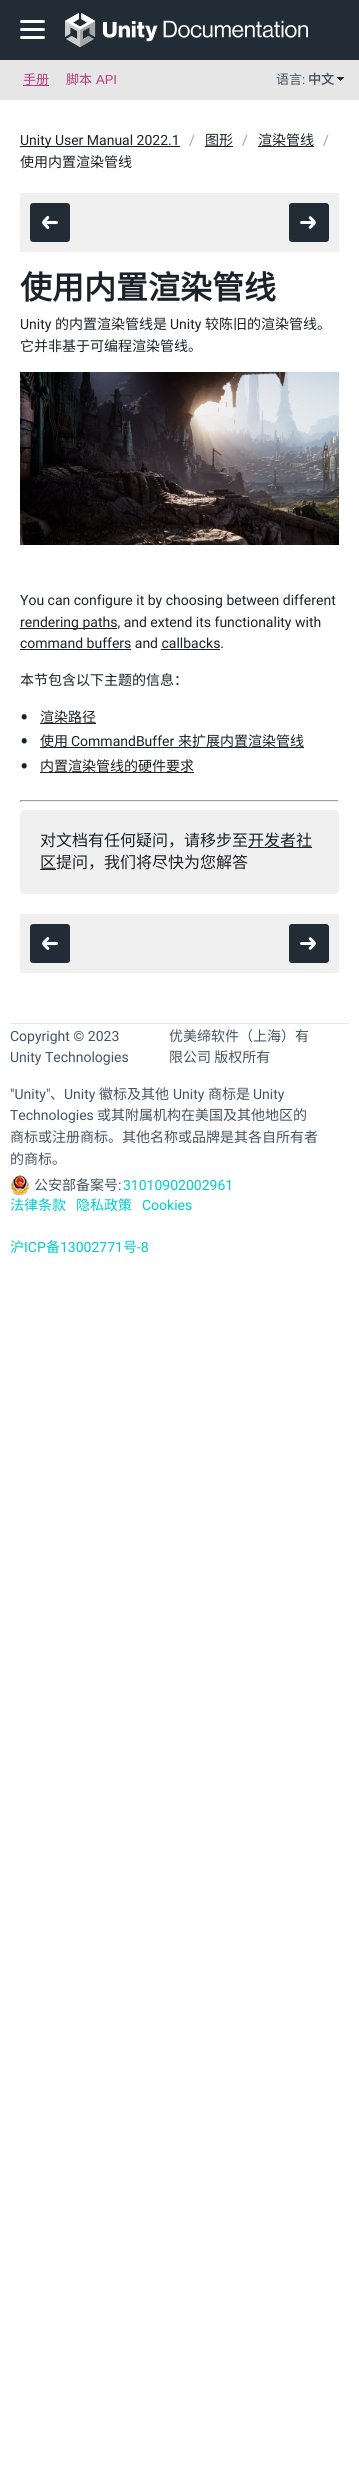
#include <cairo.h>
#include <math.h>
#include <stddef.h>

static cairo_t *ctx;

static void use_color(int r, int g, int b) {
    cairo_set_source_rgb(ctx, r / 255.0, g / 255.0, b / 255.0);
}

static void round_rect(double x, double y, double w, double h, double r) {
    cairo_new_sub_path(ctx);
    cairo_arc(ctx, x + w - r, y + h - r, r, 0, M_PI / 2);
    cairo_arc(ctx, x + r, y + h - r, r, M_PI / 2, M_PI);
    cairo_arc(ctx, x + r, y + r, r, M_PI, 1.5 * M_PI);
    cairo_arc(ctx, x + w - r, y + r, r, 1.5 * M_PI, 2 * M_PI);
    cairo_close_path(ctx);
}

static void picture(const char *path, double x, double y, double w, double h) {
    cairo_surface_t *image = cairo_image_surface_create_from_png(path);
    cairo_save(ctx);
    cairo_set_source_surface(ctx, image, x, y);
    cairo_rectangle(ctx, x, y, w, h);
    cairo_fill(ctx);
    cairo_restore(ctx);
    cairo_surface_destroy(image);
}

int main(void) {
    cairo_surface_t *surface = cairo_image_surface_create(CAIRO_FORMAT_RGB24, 359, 2478);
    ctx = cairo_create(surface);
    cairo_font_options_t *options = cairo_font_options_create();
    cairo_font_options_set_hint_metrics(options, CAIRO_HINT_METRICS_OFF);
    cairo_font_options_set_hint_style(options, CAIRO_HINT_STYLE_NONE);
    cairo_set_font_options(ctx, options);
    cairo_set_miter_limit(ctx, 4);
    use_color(255, 255, 255);
    cairo_paint(ctx);
    use_color(34, 44, 55);
    cairo_rectangle(ctx, 0, 0, 359, 60);
    cairo_fill(ctx);
    use_color(255, 255, 255);
    round_rect(20, 20, 25, 3, 1.5);
    cairo_fill(ctx);
    round_rect(20, 28, 25, 3, 1.5);
    cairo_fill(ctx);
    round_rect(20, 36, 25, 3, 1.5);
    cairo_fill(ctx);
    picture("img1.png", 65, 13, 243, 34);
    use_color(230, 230, 230);
    cairo_rectangle(ctx, 0, 60, 359, 40);
    cairo_fill(ctx);
    use_color(184, 60, 130);
    cairo_rectangle(ctx, 23, 85, 26, 1);
    cairo_fill(ctx);
    cairo_select_font_face(ctx, "Noto Sans CJK SC", CAIRO_FONT_SLANT_NORMAL, CAIRO_FONT_WEIGHT_NORMAL);
    cairo_set_font_size(ctx, 13);
    cairo_move_to(ctx, 23, 84);
    cairo_show_text(ctx, "手册");
    cairo_move_to(ctx, 66, 84);
    cairo_show_text(ctx, "脚本");
    cairo_select_font_face(ctx, "Liberation Sans", CAIRO_FONT_SLANT_NORMAL, CAIRO_FONT_WEIGHT_NORMAL);
    cairo_move_to(ctx, 96, 84);
    cairo_show_text(ctx, "API");
    cairo_select_font_face(ctx, "Noto Sans CJK SC", CAIRO_FONT_SLANT_NORMAL, CAIRO_FONT_WEIGHT_NORMAL);
    use_color(69, 84, 99);
    cairo_move_to(ctx, 276, 84);
    cairo_show_text(ctx, "语言");
    cairo_select_font_face(ctx, "Roboto", CAIRO_FONT_SLANT_NORMAL, CAIRO_FONT_WEIGHT_NORMAL);
    cairo_move_to(ctx, 302, 84);
    cairo_show_text(ctx, ":");
    cairo_select_font_face(ctx, "Noto Sans CJK SC", CAIRO_FONT_SLANT_NORMAL, CAIRO_FONT_WEIGHT_BOLD);
    cairo_move_to(ctx, 308, 84);
    cairo_show_text(ctx, "中文");
    picture("img2.png", 337, 77, 7, 4);
    use_color(27, 34, 41);
    cairo_rectangle(ctx, 20, 146, 160, 1);
    cairo_fill(ctx);
    cairo_select_font_face(ctx, "Roboto", CAIRO_FONT_SLANT_NORMAL, CAIRO_FONT_WEIGHT_NORMAL);
    cairo_set_font_size(ctx, 14);
    cairo_move_to(ctx, 20, 145);
    cairo_show_text(ctx, "Unity User Manual 2022.1");
    use_color(153, 160, 167);
    cairo_move_to(ctx, 189, 145);
    cairo_show_text(ctx, "/");
    use_color(27, 34, 41);
    cairo_rectangle(ctx, 205, 146, 28, 1);
    cairo_fill(ctx);
    cairo_select_font_face(ctx, "Noto Sans CJK SC", CAIRO_FONT_SLANT_NORMAL, CAIRO_FONT_WEIGHT_NORMAL);
    cairo_move_to(ctx, 205, 145);
    cairo_show_text(ctx, "图形");
    cairo_select_font_face(ctx, "Roboto", CAIRO_FONT_SLANT_NORMAL, CAIRO_FONT_WEIGHT_NORMAL);
    use_color(153, 160, 167);
    cairo_move_to(ctx, 242, 145);
    cairo_show_text(ctx, "/");
    use_color(27, 34, 41);
    cairo_rectangle(ctx, 258, 146, 56, 1);
    cairo_fill(ctx);
    cairo_select_font_face(ctx, "Noto Sans CJK SC", CAIRO_FONT_SLANT_NORMAL, CAIRO_FONT_WEIGHT_NORMAL);
    cairo_move_to(ctx, 258, 145);
    cairo_show_text(ctx, "渲染管线");
    cairo_select_font_face(ctx, "Roboto", CAIRO_FONT_SLANT_NORMAL, CAIRO_FONT_WEIGHT_NORMAL);
    use_color(153, 160, 167);
    cairo_move_to(ctx, 323, 145);
    cairo_show_text(ctx, "/");
    cairo_select_font_face(ctx, "Noto Sans CJK SC", CAIRO_FONT_SLANT_NORMAL, CAIRO_FONT_WEIGHT_NORMAL);
    use_color(27, 34, 41);
    cairo_move_to(ctx, 20, 167);
    cairo_show_text(ctx, "使用内置渲染管线");
    use_color(240, 240, 240);
    cairo_rectangle(ctx, 20, 193, 319, 59);
    cairo_fill(ctx);
    use_color(34, 44, 55);
    round_rect(30, 203, 40, 39, 3);
    cairo_fill(ctx);
    picture("img3.png", 42, 216, 16, 13);
    round_rect(289, 203, 40, 39, 3);
    cairo_fill(ctx);
    picture("img4.png", 300, 216, 16, 13);
    cairo_select_font_face(ctx, "Noto Sans CJK SC", CAIRO_FONT_SLANT_NORMAL, CAIRO_FONT_WEIGHT_BOLD);
    cairo_set_font_size(ctx, 32);
    use_color(27, 34, 41);
    cairo_move_to(ctx, 20, 299);
    cairo_show_text(ctx, "使用内置渲染管线");
    cairo_select_font_face(ctx, "Roboto", CAIRO_FONT_SLANT_NORMAL, CAIRO_FONT_WEIGHT_NORMAL);
    cairo_set_font_size(ctx, 14);
    cairo_move_to(ctx, 20, 329);
    cairo_show_text(ctx, "Unity");
    cairo_select_font_face(ctx, "Noto Sans CJK SC", CAIRO_FONT_SLANT_NORMAL, CAIRO_FONT_WEIGHT_NORMAL);
    cairo_move_to(ctx, 55, 329);
    cairo_show_text(ctx, "的内置渲染管线是");
    cairo_select_font_face(ctx, "Roboto", CAIRO_FONT_SLANT_NORMAL, CAIRO_FONT_WEIGHT_NORMAL);
    cairo_move_to(ctx, 170, 329);
    cairo_show_text(ctx, "Unity");
    cairo_select_font_face(ctx, "Noto Sans CJK SC", CAIRO_FONT_SLANT_NORMAL, CAIRO_FONT_WEIGHT_NORMAL);
    cairo_move_to(ctx, 205, 329);
    cairo_show_text(ctx, "较陈旧的渲染管线。");
    cairo_move_to(ctx, 20, 351);
    cairo_show_text(ctx, "它并非基于可编程渲染管线。");
    picture("img5.png", 20, 372, 319, 173);
    cairo_select_font_face(ctx, "Roboto", CAIRO_FONT_SLANT_NORMAL, CAIRO_FONT_WEIGHT_NORMAL);
    cairo_move_to(ctx, 20, 605);
    cairo_show_text(ctx, "You can configure it by choosing between different");
    cairo_rectangle(ctx, 20, 628, 97, 1);
    cairo_fill(ctx);
    cairo_move_to(ctx, 20, 627);
    cairo_show_text(ctx, "rendering paths, and extend its functionality with");
    cairo_move_to(ctx, 20, 648);
    cairo_show_text(ctx, "command buffers and callbacks.");
    cairo_rectangle(ctx, 20, 649, 111, 1);
    cairo_fill(ctx);
    cairo_rectangle(ctx, 161, 649, 59, 1);
    cairo_fill(ctx);
    cairo_select_font_face(ctx, "Noto Sans CJK SC", CAIRO_FONT_SLANT_NORMAL, CAIRO_FONT_WEIGHT_NORMAL);
    cairo_move_to(ctx, 20, 685);
    cairo_show_text(ctx, "本节包含以下主题的信息：");
    cairo_select_font_face(ctx, "Roboto", CAIRO_FONT_SLANT_NORMAL, CAIRO_FONT_WEIGHT_NORMAL);
    cairo_set_font_size(ctx, 25);
    cairo_move_to(ctx, 20, 726);
    cairo_show_text(ctx, "•");
    cairo_rectangle(ctx, 40, 723, 56, 1);
    cairo_fill(ctx);
    cairo_select_font_face(ctx, "Noto Sans CJK SC", CAIRO_FONT_SLANT_NORMAL, CAIRO_FONT_WEIGHT_NORMAL);
    cairo_set_font_size(ctx, 14);
    cairo_move_to(ctx, 40, 722);
    cairo_show_text(ctx, "渲染路径");
    cairo_select_font_face(ctx, "Roboto", CAIRO_FONT_SLANT_NORMAL, CAIRO_FONT_WEIGHT_NORMAL);
    cairo_set_font_size(ctx, 25);
    cairo_move_to(ctx, 20, 750);
    cairo_show_text(ctx, "•");
    cairo_rectangle(ctx, 40, 747, 264, 1);
    cairo_fill(ctx);
    cairo_select_font_face(ctx, "Noto Sans CJK SC", CAIRO_FONT_SLANT_NORMAL, CAIRO_FONT_WEIGHT_NORMAL);
    cairo_set_font_size(ctx, 14);
    cairo_move_to(ctx, 40, 746);
    cairo_show_text(ctx, "使用");
    cairo_select_font_face(ctx, "Roboto", CAIRO_FONT_SLANT_NORMAL, CAIRO_FONT_WEIGHT_NORMAL);
    cairo_move_to(ctx, 71, 746);
    cairo_show_text(ctx, "CommandBuffer");
    cairo_select_font_face(ctx, "Noto Sans CJK SC", CAIRO_FONT_SLANT_NORMAL, CAIRO_FONT_WEIGHT_NORMAL);
    cairo_move_to(ctx, 178, 746);
    cairo_show_text(ctx, "来扩展内置渲染管线");
    cairo_select_font_face(ctx, "Roboto", CAIRO_FONT_SLANT_NORMAL, CAIRO_FONT_WEIGHT_NORMAL);
    cairo_set_font_size(ctx, 25);
    cairo_move_to(ctx, 20, 775);
    cairo_show_text(ctx, "•");
    cairo_rectangle(ctx, 40, 772, 154, 1);
    cairo_fill(ctx);
    cairo_select_font_face(ctx, "Noto Sans CJK SC", CAIRO_FONT_SLANT_NORMAL, CAIRO_FONT_WEIGHT_NORMAL);
    cairo_set_font_size(ctx, 14);
    cairo_move_to(ctx, 40, 771);
    cairo_show_text(ctx, "内置渲染管线的硬件要求");
    use_color(159, 159, 159);
    cairo_rectangle(ctx, 20, 800, 319, 1);
    cairo_fill(ctx);
    use_color(238, 238, 238);
    cairo_rectangle(ctx, 338, 800, 1, 2);
    cairo_fill(ctx);
    cairo_rectangle(ctx, 20, 801, 319, 1);
    cairo_fill(ctx);
    use_color(159, 159, 159);
    cairo_rectangle(ctx, 20, 800, 1, 2);
    cairo_fill(ctx);
    use_color(240, 240, 240);
    round_rect(20, 810, 319, 84, 5);
    cairo_fill(ctx);
    cairo_set_font_size(ctx, 16);
    use_color(27, 34, 41);
    cairo_move_to(ctx, 40, 846);
    cairo_show_text(ctx, "对文档有任何疑问，请移步至");
    cairo_rectangle(ctx, 248, 847, 64, 1);
    cairo_fill(ctx);
    cairo_move_to(ctx, 248, 846);
    cairo_show_text(ctx, "开发者社");
    cairo_rectangle(ctx, 40, 869, 16, 1);
    cairo_fill(ctx);
    cairo_move_to(ctx, 40, 868);
    cairo_show_text(ctx, "区提问，我们将尽快为您解答");
    use_color(240, 240, 240);
    cairo_rectangle(ctx, 20, 914, 319, 59);
    cairo_fill(ctx);
    use_color(34, 44, 55);
    round_rect(30, 924, 40, 39, 3);
    cairo_fill(ctx);
    picture("img3.png", 42, 937, 16, 13);
    round_rect(289, 924, 40, 39, 3);
    cairo_fill(ctx);
    picture("img4.png", 300, 937, 16, 13);
    use_color(230, 230, 230);
    cairo_rectangle(ctx, 10, 1023, 339, 1);
    cairo_fill(ctx);
    cairo_select_font_face(ctx, "Roboto", CAIRO_FONT_SLANT_NORMAL, CAIRO_FONT_WEIGHT_NORMAL);
    cairo_set_font_size(ctx, 14);
    use_color(69, 84, 99);
    cairo_move_to(ctx, 10, 1041);
    cairo_show_text(ctx, "Copyright © 2023");
    cairo_move_to(ctx, 10, 1062);
    cairo_show_text(ctx, "Unity Technologies");
    cairo_select_font_face(ctx, "Noto Sans CJK SC", CAIRO_FONT_SLANT_NORMAL, CAIRO_FONT_WEIGHT_NORMAL);
    cairo_move_to(ctx, 169, 1041);
    cairo_show_text(ctx, "优美缔软件（上海）有");
    cairo_move_to(ctx, 169, 1062);
    cairo_show_text(ctx, "限公司 版权所有");
    cairo_select_font_face(ctx, "Roboto", CAIRO_FONT_SLANT_NORMAL, CAIRO_FONT_WEIGHT_NORMAL);
    cairo_move_to(ctx, 10, 1099);
    cairo_show_text(ctx, "\"Unity\"");
    cairo_select_font_face(ctx, "Noto Sans CJK SC", CAIRO_FONT_SLANT_NORMAL, CAIRO_FONT_WEIGHT_NORMAL);
    cairo_move_to(ctx, 50, 1099);
    cairo_show_text(ctx, "、");
    cairo_select_font_face(ctx, "Roboto", CAIRO_FONT_SLANT_NORMAL, CAIRO_FONT_WEIGHT_NORMAL);
    cairo_move_to(ctx, 64, 1099);
    cairo_show_text(ctx, "Unity");
    cairo_select_font_face(ctx, "Noto Sans CJK SC", CAIRO_FONT_SLANT_NORMAL, CAIRO_FONT_WEIGHT_NORMAL);
    cairo_move_to(ctx, 99, 1099);
    cairo_show_text(ctx, "徽标及其他");
    cairo_select_font_face(ctx, "Roboto", CAIRO_FONT_SLANT_NORMAL, CAIRO_FONT_WEIGHT_NORMAL);
    cairo_move_to(ctx, 173, 1099);
    cairo_show_text(ctx, "Unity");
    cairo_select_font_face(ctx, "Noto Sans CJK SC", CAIRO_FONT_SLANT_NORMAL, CAIRO_FONT_WEIGHT_NORMAL);
    cairo_move_to(ctx, 208, 1099);
    cairo_show_text(ctx, "商标是");
    cairo_select_font_face(ctx, "Roboto", CAIRO_FONT_SLANT_NORMAL, CAIRO_FONT_WEIGHT_NORMAL);
    cairo_move_to(ctx, 253, 1099);
    cairo_show_text(ctx, "Unity");
    cairo_move_to(ctx, 10, 1120);
    cairo_show_text(ctx, "Technologies");
    cairo_select_font_face(ctx, "Noto Sans CJK SC", CAIRO_FONT_SLANT_NORMAL, CAIRO_FONT_WEIGHT_NORMAL);
    cairo_move_to(ctx, 97, 1120);
    cairo_show_text(ctx, "或其附属机构在美国及其他地区的");
    cairo_move_to(ctx, 10, 1142);
    cairo_show_text(ctx, "商标或注册商标。其他名称或品牌是其各自所有者");
    cairo_move_to(ctx, 10, 1164);
    cairo_show_text(ctx, "的商标。");
    picture("img6.png", 11, 1175, 18, 20);
    cairo_move_to(ctx, 34, 1190);
    cairo_show_text(ctx, "公安部备案号");
    cairo_select_font_face(ctx, "Roboto", CAIRO_FONT_SLANT_NORMAL, CAIRO_FONT_WEIGHT_NORMAL);
    cairo_move_to(ctx, 118, 1190);
    cairo_show_text(ctx, ":");
    use_color(0, 204, 204);
    cairo_move_to(ctx, 123, 1190);
    cairo_show_text(ctx, "31010902002961");
    cairo_select_font_face(ctx, "Noto Sans CJK SC", CAIRO_FONT_SLANT_NORMAL, CAIRO_FONT_WEIGHT_NORMAL);
    cairo_move_to(ctx, 10, 1210);
    cairo_show_text(ctx, "法律条款");
    cairo_move_to(ctx, 76, 1210);
    cairo_show_text(ctx, "隐私政策");
    cairo_select_font_face(ctx, "Roboto", CAIRO_FONT_SLANT_NORMAL, CAIRO_FONT_WEIGHT_NORMAL);
    cairo_move_to(ctx, 142, 1210);
    cairo_show_text(ctx, "Cookies");
    cairo_select_font_face(ctx, "Noto Sans CJK SC", CAIRO_FONT_SLANT_NORMAL, CAIRO_FONT_WEIGHT_NORMAL);
    cairo_move_to(ctx, 10, 1252);
    cairo_show_text(ctx, "沪");
    cairo_select_font_face(ctx, "Roboto", CAIRO_FONT_SLANT_NORMAL, CAIRO_FONT_WEIGHT_NORMAL);
    cairo_move_to(ctx, 24, 1252);
    cairo_show_text(ctx, "ICP");
    cairo_select_font_face(ctx, "Noto Sans CJK SC", CAIRO_FONT_SLANT_NORMAL, CAIRO_FONT_WEIGHT_NORMAL);
    cairo_move_to(ctx, 46, 1252);
    cairo_show_text(ctx, "备");
    cairo_select_font_face(ctx, "Roboto", CAIRO_FONT_SLANT_NORMAL, CAIRO_FONT_WEIGHT_NORMAL);
    cairo_move_to(ctx, 60, 1252);
    cairo_show_text(ctx, "13002771");
    cairo_select_font_face(ctx, "Noto Sans CJK SC", CAIRO_FONT_SLANT_NORMAL, CAIRO_FONT_WEIGHT_NORMAL);
    cairo_move_to(ctx, 123, 1252);
    cairo_show_text(ctx, "号");
    cairo_select_font_face(ctx, "Roboto", CAIRO_FONT_SLANT_NORMAL, CAIRO_FONT_WEIGHT_NORMAL);
    cairo_move_to(ctx, 137, 1252);
    cairo_show_text(ctx, "-8");
    cairo_surface_write_to_png(surface, "result.png");
    cairo_font_options_destroy(options);
    cairo_destroy(ctx);
    cairo_surface_destroy(surface);
    return 0;
}
